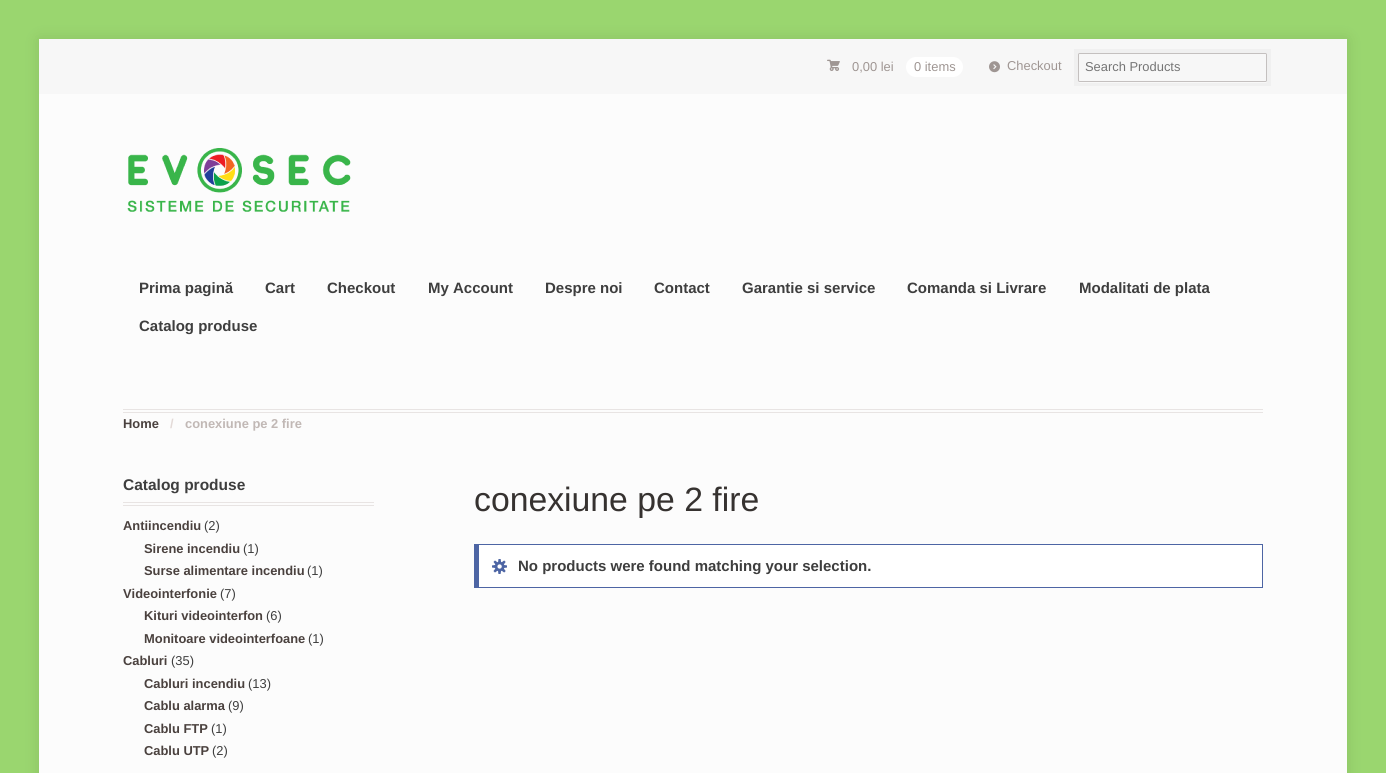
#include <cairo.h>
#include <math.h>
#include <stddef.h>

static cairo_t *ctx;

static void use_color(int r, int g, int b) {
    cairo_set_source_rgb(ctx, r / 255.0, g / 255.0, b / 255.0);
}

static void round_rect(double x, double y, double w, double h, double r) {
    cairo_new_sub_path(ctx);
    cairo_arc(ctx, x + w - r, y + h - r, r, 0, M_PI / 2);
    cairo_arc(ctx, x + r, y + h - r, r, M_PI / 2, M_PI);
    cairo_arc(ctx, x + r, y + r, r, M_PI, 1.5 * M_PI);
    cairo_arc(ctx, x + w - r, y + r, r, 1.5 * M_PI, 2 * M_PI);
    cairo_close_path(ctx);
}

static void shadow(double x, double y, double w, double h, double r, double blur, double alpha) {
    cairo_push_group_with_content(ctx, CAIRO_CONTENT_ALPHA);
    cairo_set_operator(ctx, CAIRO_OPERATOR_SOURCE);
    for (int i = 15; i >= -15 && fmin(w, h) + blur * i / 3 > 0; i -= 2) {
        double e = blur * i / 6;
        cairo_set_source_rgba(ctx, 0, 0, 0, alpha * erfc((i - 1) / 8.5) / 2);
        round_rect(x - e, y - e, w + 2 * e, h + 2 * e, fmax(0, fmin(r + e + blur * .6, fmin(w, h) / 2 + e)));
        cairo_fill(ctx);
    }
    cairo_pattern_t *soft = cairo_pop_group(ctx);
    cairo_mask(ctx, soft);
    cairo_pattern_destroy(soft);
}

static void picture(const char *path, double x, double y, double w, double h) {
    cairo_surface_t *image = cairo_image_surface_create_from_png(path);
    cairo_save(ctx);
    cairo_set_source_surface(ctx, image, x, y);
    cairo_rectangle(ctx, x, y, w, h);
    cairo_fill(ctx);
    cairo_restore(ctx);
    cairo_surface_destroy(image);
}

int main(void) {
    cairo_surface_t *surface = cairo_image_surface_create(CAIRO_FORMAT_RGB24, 1386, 773);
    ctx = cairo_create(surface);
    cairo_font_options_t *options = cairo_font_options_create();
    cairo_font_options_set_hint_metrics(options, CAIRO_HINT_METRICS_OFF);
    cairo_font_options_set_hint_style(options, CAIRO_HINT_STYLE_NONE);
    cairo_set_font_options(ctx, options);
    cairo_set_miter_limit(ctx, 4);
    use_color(154, 214, 111);
    cairo_paint(ctx);
    use_color(0, 0, 0);
    shadow(39, 39, 1308, 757, 0, 7.5, 0.1);
    use_color(252, 252, 252);
    cairo_rectangle(ctx, 39, 94, 1308, 679);
    cairo_fill(ctx);
    use_color(247, 247, 247);
    cairo_rectangle(ctx, 39, 39, 1308, 55);
    cairo_fill(ctx);
    cairo_select_font_face(ctx, "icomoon", CAIRO_FONT_SLANT_NORMAL, CAIRO_FONT_WEIGHT_NORMAL);
    cairo_set_font_size(ctx, 12.9);
    use_color(159, 150, 147);
    cairo_move_to(ctx, 827, 71);
    cairo_show_text(ctx, "£");
    cairo_select_font_face(ctx, "Liberation Sans", CAIRO_FONT_SLANT_NORMAL, CAIRO_FONT_WEIGHT_NORMAL);
    cairo_move_to(ctx, 852, 71);
    cairo_show_text(ctx, "0,00 lei");
    use_color(255, 255, 255);
    round_rect(906, 57, 57, 20, 10);
    cairo_fill(ctx);
    use_color(159, 150, 147);
    cairo_move_to(ctx, 914, 71);
    cairo_show_text(ctx, "0 items");
    picture("img1.png", 989, 61, 11, 12);
    cairo_move_to(ctx, 1007, 70);
    cairo_show_text(ctx, "Checkout");
    use_color(255, 255, 255);
    cairo_new_path(ctx);
    cairo_move_to(ctx, 1078, 80);
    cairo_line_to(ctx, 1078, 82);
    cairo_curve_to(ctx, 1078, 82, 1079, 83, 1080, 83);
    cairo_line_to(ctx, 1266, 83);
    cairo_curve_to(ctx, 1266, 83, 1267, 82, 1267, 82);
    cairo_line_to(ctx, 1267, 80);
    cairo_curve_to(ctx, 1267, 81, 1266, 82, 1265, 82);
    cairo_line_to(ctx, 1080, 82);
    cairo_curve_to(ctx, 1079, 82, 1078, 81, 1078, 80);
    cairo_close_path(ctx);
    cairo_fill(ctx);
    cairo_rectangle(ctx, 1076, 51, 193, 33);
    cairo_set_source_rgba(ctx, 0, 0, 0, 0.03);
    cairo_set_line_width(ctx, 4);
    cairo_stroke(ctx);
    use_color(247, 247, 247);
    round_rect(1078.5, 53.5, 188, 28, 1);
    cairo_fill_preserve(ctx);
    use_color(196, 192, 191);
    cairo_set_line_width(ctx, 1);
    cairo_stroke(ctx);
    use_color(117, 117, 117);
    cairo_move_to(ctx, 1085, 71);
    cairo_show_text(ctx, "Search Products");
    use_color(232, 228, 227);
    cairo_rectangle(ctx, 123, 409, 1140, 1);
    cairo_fill(ctx);
    cairo_rectangle(ctx, 123, 412, 1140, 1);
    cairo_fill(ctx);
    picture("img2.png", 127, 148, 224, 64);
    cairo_select_font_face(ctx, "Liberation Sans", CAIRO_FONT_SLANT_NORMAL, CAIRO_FONT_WEIGHT_BOLD);
    cairo_set_font_size(ctx, 15);
    use_color(62, 62, 62);
    cairo_move_to(ctx, 139, 293);
    cairo_show_text(ctx, "Prima pagină");
    cairo_move_to(ctx, 265, 293);
    cairo_show_text(ctx, "Cart");
    cairo_move_to(ctx, 327, 293);
    cairo_show_text(ctx, "Checkout");
    cairo_move_to(ctx, 428, 293);
    cairo_show_text(ctx, "My Account");
    cairo_move_to(ctx, 545, 293);
    cairo_show_text(ctx, "Despre noi");
    cairo_move_to(ctx, 654, 293);
    cairo_show_text(ctx, "Contact");
    cairo_move_to(ctx, 742, 293);
    cairo_show_text(ctx, "Garantie si service");
    cairo_move_to(ctx, 907, 293);
    cairo_show_text(ctx, "Comanda si Livrare");
    cairo_move_to(ctx, 1079, 293);
    cairo_show_text(ctx, "Modalitati de plata");
    cairo_move_to(ctx, 139, 331);
    cairo_show_text(ctx, "Catalog produse");
    cairo_set_font_size(ctx, 12.9);
    use_color(74, 65, 62);
    cairo_move_to(ctx, 123, 428);
    cairo_show_text(ctx, "Home");
    use_color(227, 218, 215);
    cairo_move_to(ctx, 170, 428);
    cairo_show_text(ctx, "/");
    use_color(193, 184, 181);
    cairo_move_to(ctx, 185, 428);
    cairo_show_text(ctx, "conexiune pe 2 fire");
    use_color(232, 228, 227);
    cairo_rectangle(ctx, 123, 502, 251, 1);
    cairo_fill(ctx);
    cairo_rectangle(ctx, 123, 505, 251, 1);
    cairo_fill(ctx);
    cairo_set_font_size(ctx, 15.5);
    use_color(62, 62, 62);
    cairo_move_to(ctx, 123, 490);
    cairo_show_text(ctx, "Catalog produse");
    cairo_set_font_size(ctx, 12.9);
    use_color(74, 65, 62);
    cairo_move_to(ctx, 123, 530);
    cairo_show_text(ctx, "Antiincendiu");
    cairo_select_font_face(ctx, "Liberation Sans", CAIRO_FONT_SLANT_NORMAL, CAIRO_FONT_WEIGHT_NORMAL);
    use_color(62, 62, 62);
    cairo_move_to(ctx, 204, 530);
    cairo_show_text(ctx, "(2)");
    cairo_select_font_face(ctx, "Liberation Sans", CAIRO_FONT_SLANT_NORMAL, CAIRO_FONT_WEIGHT_BOLD);
    use_color(74, 65, 62);
    cairo_move_to(ctx, 144, 553);
    cairo_show_text(ctx, "Sirene incendiu");
    cairo_select_font_face(ctx, "Liberation Sans", CAIRO_FONT_SLANT_NORMAL, CAIRO_FONT_WEIGHT_NORMAL);
    use_color(62, 62, 62);
    cairo_move_to(ctx, 243, 553);
    cairo_show_text(ctx, "(1)");
    cairo_select_font_face(ctx, "Liberation Sans", CAIRO_FONT_SLANT_NORMAL, CAIRO_FONT_WEIGHT_BOLD);
    use_color(74, 65, 62);
    cairo_move_to(ctx, 144, 575);
    cairo_show_text(ctx, "Surse alimentare incendiu");
    cairo_select_font_face(ctx, "Liberation Sans", CAIRO_FONT_SLANT_NORMAL, CAIRO_FONT_WEIGHT_NORMAL);
    use_color(62, 62, 62);
    cairo_move_to(ctx, 307, 575);
    cairo_show_text(ctx, "(1)");
    cairo_select_font_face(ctx, "Liberation Sans", CAIRO_FONT_SLANT_NORMAL, CAIRO_FONT_WEIGHT_BOLD);
    use_color(74, 65, 62);
    cairo_move_to(ctx, 123, 598);
    cairo_show_text(ctx, "Videointerfonie");
    cairo_select_font_face(ctx, "Liberation Sans", CAIRO_FONT_SLANT_NORMAL, CAIRO_FONT_WEIGHT_NORMAL);
    use_color(62, 62, 62);
    cairo_move_to(ctx, 220, 598);
    cairo_show_text(ctx, "(7)");
    cairo_select_font_face(ctx, "Liberation Sans", CAIRO_FONT_SLANT_NORMAL, CAIRO_FONT_WEIGHT_BOLD);
    use_color(74, 65, 62);
    cairo_move_to(ctx, 144, 620);
    cairo_show_text(ctx, "Kituri videointerfon");
    cairo_select_font_face(ctx, "Liberation Sans", CAIRO_FONT_SLANT_NORMAL, CAIRO_FONT_WEIGHT_NORMAL);
    use_color(62, 62, 62);
    cairo_move_to(ctx, 266, 620);
    cairo_show_text(ctx, "(6)");
    cairo_select_font_face(ctx, "Liberation Sans", CAIRO_FONT_SLANT_NORMAL, CAIRO_FONT_WEIGHT_BOLD);
    use_color(74, 65, 62);
    cairo_move_to(ctx, 144, 643);
    cairo_show_text(ctx, "Monitoare videointerfoane");
    cairo_select_font_face(ctx, "Liberation Sans", CAIRO_FONT_SLANT_NORMAL, CAIRO_FONT_WEIGHT_NORMAL);
    use_color(62, 62, 62);
    cairo_move_to(ctx, 308, 643);
    cairo_show_text(ctx, "(1)");
    cairo_select_font_face(ctx, "Liberation Sans", CAIRO_FONT_SLANT_NORMAL, CAIRO_FONT_WEIGHT_BOLD);
    use_color(74, 65, 62);
    cairo_move_to(ctx, 123, 665);
    cairo_show_text(ctx, "Cabluri");
    cairo_select_font_face(ctx, "Liberation Sans", CAIRO_FONT_SLANT_NORMAL, CAIRO_FONT_WEIGHT_NORMAL);
    use_color(62, 62, 62);
    cairo_move_to(ctx, 171, 665);
    cairo_show_text(ctx, "(35)");
    cairo_select_font_face(ctx, "Liberation Sans", CAIRO_FONT_SLANT_NORMAL, CAIRO_FONT_WEIGHT_BOLD);
    use_color(74, 65, 62);
    cairo_move_to(ctx, 144, 688);
    cairo_show_text(ctx, "Cabluri incendiu");
    cairo_select_font_face(ctx, "Liberation Sans", CAIRO_FONT_SLANT_NORMAL, CAIRO_FONT_WEIGHT_NORMAL);
    use_color(62, 62, 62);
    cairo_move_to(ctx, 248, 688);
    cairo_show_text(ctx, "(13)");
    cairo_select_font_face(ctx, "Liberation Sans", CAIRO_FONT_SLANT_NORMAL, CAIRO_FONT_WEIGHT_BOLD);
    use_color(74, 65, 62);
    cairo_move_to(ctx, 144, 710);
    cairo_show_text(ctx, "Cablu alarma");
    cairo_select_font_face(ctx, "Liberation Sans", CAIRO_FONT_SLANT_NORMAL, CAIRO_FONT_WEIGHT_NORMAL);
    use_color(62, 62, 62);
    cairo_move_to(ctx, 228, 710);
    cairo_show_text(ctx, "(9)");
    cairo_select_font_face(ctx, "Liberation Sans", CAIRO_FONT_SLANT_NORMAL, CAIRO_FONT_WEIGHT_BOLD);
    use_color(74, 65, 62);
    cairo_move_to(ctx, 144, 733);
    cairo_show_text(ctx, "Cablu FTP");
    cairo_select_font_face(ctx, "Liberation Sans", CAIRO_FONT_SLANT_NORMAL, CAIRO_FONT_WEIGHT_NORMAL);
    use_color(62, 62, 62);
    cairo_move_to(ctx, 211, 733);
    cairo_show_text(ctx, "(1)");
    cairo_select_font_face(ctx, "Liberation Sans", CAIRO_FONT_SLANT_NORMAL, CAIRO_FONT_WEIGHT_BOLD);
    use_color(74, 65, 62);
    cairo_move_to(ctx, 144, 755);
    cairo_show_text(ctx, "Cablu UTP");
    cairo_select_font_face(ctx, "Liberation Sans", CAIRO_FONT_SLANT_NORMAL, CAIRO_FONT_WEIGHT_NORMAL);
    use_color(62, 62, 62);
    cairo_move_to(ctx, 212, 755);
    cairo_show_text(ctx, "(2)");
    cairo_set_font_size(ctx, 33.75);
    use_color(54, 50, 48);
    cairo_move_to(ctx, 474, 511);
    cairo_show_text(ctx, "conexiune pe 2 fire");
    use_color(255, 255, 255);
    cairo_rectangle(ctx, 479, 545, 783, 42);
    cairo_fill(ctx);
    use_color(77, 101, 164);
    cairo_rectangle(ctx, 474, 544, 789, 1);
    cairo_fill(ctx);
    cairo_rectangle(ctx, 1262, 544, 1, 44);
    cairo_fill(ctx);
    cairo_rectangle(ctx, 474, 587, 789, 1);
    cairo_fill(ctx);
    cairo_rectangle(ctx, 474, 544, 5, 44);
    cairo_fill(ctx);
    picture("img3.png", 492, 559, 15, 15);
    cairo_select_font_face(ctx, "Liberation Sans", CAIRO_FONT_SLANT_NORMAL, CAIRO_FONT_WEIGHT_BOLD);
    cairo_set_font_size(ctx, 15);
    use_color(62, 62, 62);
    cairo_move_to(ctx, 518, 571);
    cairo_show_text(ctx, "No products were found matching your selection.");
    cairo_surface_write_to_png(surface, "result.png");
    cairo_font_options_destroy(options);
    cairo_destroy(ctx);
    cairo_surface_destroy(surface);
    return 0;
}
